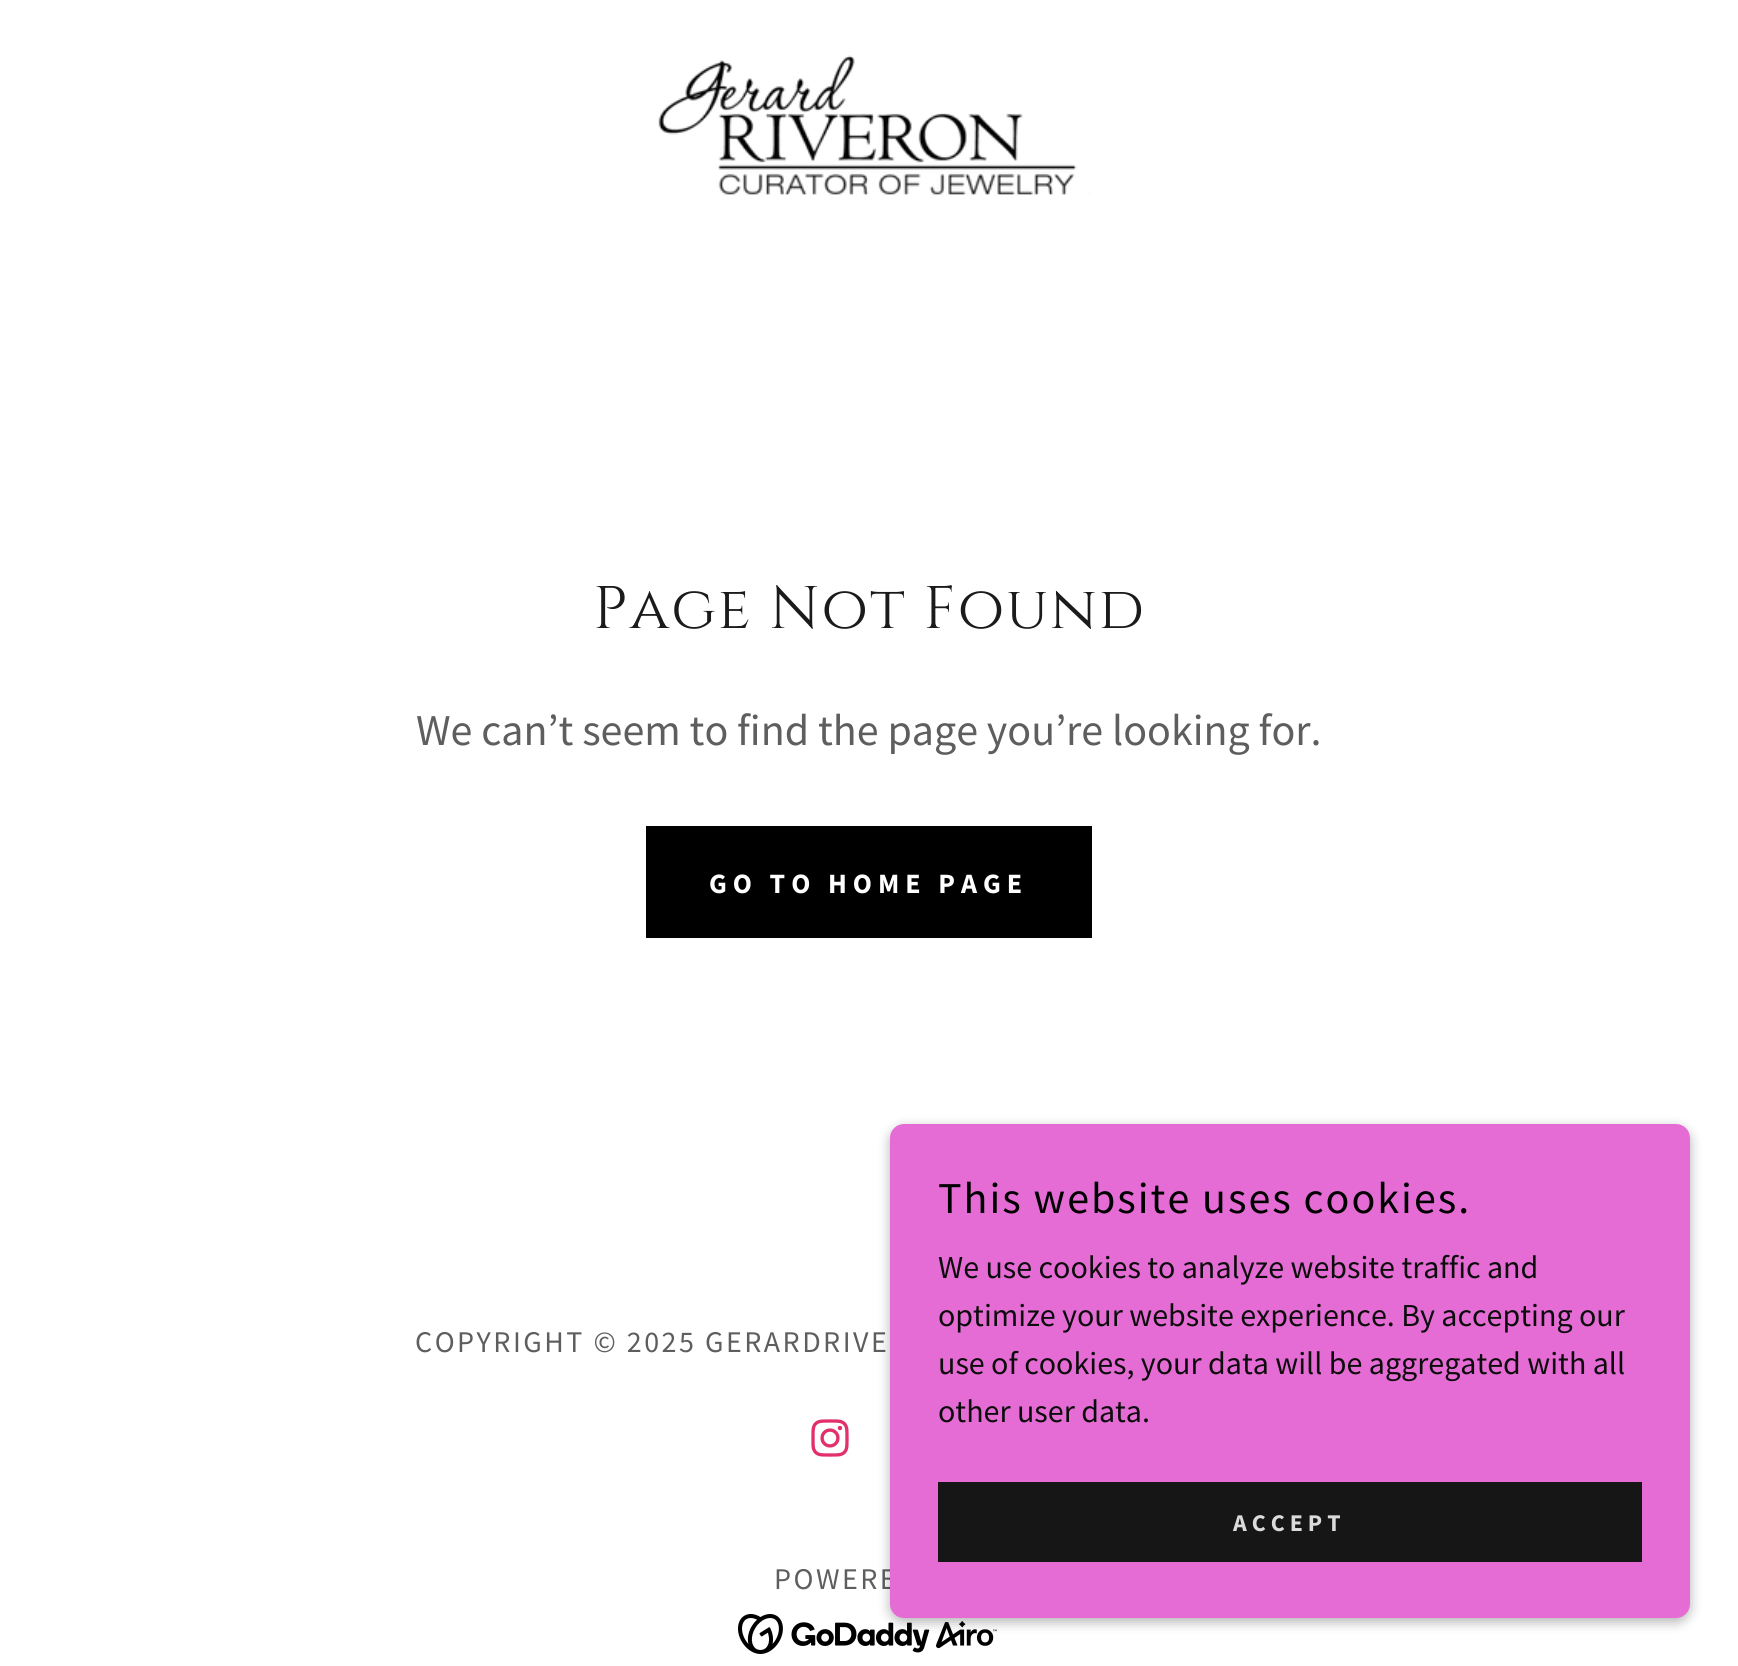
#include <cairo.h>
#include <math.h>
#include <stddef.h>

static cairo_t *ctx;

static void use_color(int r, int g, int b) {
    cairo_set_source_rgb(ctx, r / 255.0, g / 255.0, b / 255.0);
}

static void spaced_text(double x, double y, const char *s, double letter, double word) {
    cairo_move_to(ctx, x, y);
    while (*s) {
        char ch[5] = {0};
        int n = 0;
        do ch[n++] = *s++; while ((*s & 0xC0) == 0x80);
        cairo_show_text(ctx, ch);
        cairo_rel_move_to(ctx, letter + word * (*ch == ' '), 0);
    }
}

static void round_rect(double x, double y, double w, double h, double r) {
    cairo_new_sub_path(ctx);
    cairo_arc(ctx, x + w - r, y + h - r, r, 0, M_PI / 2);
    cairo_arc(ctx, x + r, y + h - r, r, M_PI / 2, M_PI);
    cairo_arc(ctx, x + r, y + r, r, M_PI, 1.5 * M_PI);
    cairo_arc(ctx, x + w - r, y + r, r, 1.5 * M_PI, 2 * M_PI);
    cairo_close_path(ctx);
}

static void shadow(double x, double y, double w, double h, double r, double blur, double alpha) {
    cairo_push_group_with_content(ctx, CAIRO_CONTENT_ALPHA);
    cairo_set_operator(ctx, CAIRO_OPERATOR_SOURCE);
    for (int i = 15; i >= -15 && fmin(w, h) + blur * i / 3 > 0; i -= 2) {
        double e = blur * i / 6;
        cairo_set_source_rgba(ctx, 0, 0, 0, alpha * erfc((i - 1) / 8.5) / 2);
        round_rect(x - e, y - e, w + 2 * e, h + 2 * e, fmax(0, fmin(r + e + blur * .6, fmin(w, h) / 2 + e)));
        cairo_fill(ctx);
    }
    cairo_pattern_t *soft = cairo_pop_group(ctx);
    cairo_mask(ctx, soft);
    cairo_pattern_destroy(soft);
}

static void picture(const char *path, double x, double y, double w, double h) {
    cairo_surface_t *image = cairo_image_surface_create_from_png(path);
    cairo_save(ctx);
    cairo_set_source_surface(ctx, image, x, y);
    cairo_rectangle(ctx, x, y, w, h);
    cairo_fill(ctx);
    cairo_restore(ctx);
    cairo_surface_destroy(image);
}

int main(void) {
    cairo_surface_t *surface = cairo_image_surface_create(CAIRO_FORMAT_RGB24, 1738, 1666);
    ctx = cairo_create(surface);
    cairo_font_options_t *options = cairo_font_options_create();
    cairo_font_options_set_hint_metrics(options, CAIRO_HINT_METRICS_OFF);
    cairo_font_options_set_hint_style(options, CAIRO_HINT_STYLE_NONE);
    cairo_set_font_options(ctx, options);
    cairo_set_miter_limit(ctx, 4);
    use_color(255, 255, 255);
    cairo_paint(ctx);
    picture("img1.png", 658, 55, 433, 140);
    cairo_select_font_face(ctx, "Cinzel", CAIRO_FONT_SLANT_NORMAL, CAIRO_FONT_WEIGHT_NORMAL);
    cairo_set_font_size(ctx, 60);
    use_color(27, 27, 27);
    spaced_text(593, 628, "Page Not Found", 1.9, 0);
    cairo_select_font_face(ctx, "Source Sans Pro", CAIRO_FONT_SLANT_NORMAL, CAIRO_FONT_WEIGHT_NORMAL);
    cairo_set_font_size(ctx, 44);
    use_color(94, 94, 94);
    cairo_move_to(ctx, 416, 745);
    cairo_show_text(ctx, "We can’t seem to find the page you’re looking for.");
    use_color(0, 0, 0);
    cairo_rectangle(ctx, 646, 826, 446, 112);
    cairo_fill(ctx);
    cairo_select_font_face(ctx, "Source Sans Pro", CAIRO_FONT_SLANT_NORMAL, CAIRO_FONT_WEIGHT_BOLD);
    cairo_set_font_size(ctx, 28);
    use_color(255, 255, 255);
    spaced_text(709, 893, "GO TO HOME PAGE", 6, 0);
    cairo_select_font_face(ctx, "Source Sans Pro", CAIRO_FONT_SLANT_NORMAL, CAIRO_FONT_WEIGHT_NORMAL);
    cairo_set_font_size(ctx, 30);
    use_color(94, 94, 94);
    spaced_text(415, 1352, "COPYRIGHT © 2025 GERARDRIVE", 2.5, 0);
    picture("img2.png", 811, 1419, 38, 38);
    spaced_text(774, 1589, "POWERE", 2.5, 0);
    picture("img3.png", 738, 1614, 259, 40);
    use_color(0, 0, 0);
    shadow(890, 1128, 800, 494, 14, 6, 0.3);
    use_color(229, 108, 213);
    round_rect(890, 1124, 800, 494, 14);
    cairo_fill(ctx);
    cairo_set_font_size(ctx, 44);
    use_color(0, 0, 0);
    spaced_text(938, 1213, "This website uses cookies.", 2, 0);
    cairo_set_font_size(ctx, 32);
    use_color(13, 12, 13);
    cairo_move_to(ctx, 938, 1278);
    cairo_show_text(ctx, "We use cookies to analyze website traffic and");
    cairo_move_to(ctx, 938, 1326);
    cairo_show_text(ctx, "optimize your website experience. By accepting our");
    cairo_move_to(ctx, 938, 1374);
    cairo_show_text(ctx, "use of cookies, your data will be aggregated with all");
    cairo_move_to(ctx, 938, 1422);
    cairo_show_text(ctx, "other user data.");
    use_color(22, 22, 22);
    cairo_rectangle(ctx, 938, 1482, 704, 80);
    cairo_fill(ctx);
    cairo_select_font_face(ctx, "Source Sans Pro", CAIRO_FONT_SLANT_NORMAL, CAIRO_FONT_WEIGHT_BOLD);
    cairo_set_font_size(ctx, 24);
    use_color(219, 219, 219);
    spaced_text(1233, 1531, "ACCEPT", 5, 0);
    cairo_surface_write_to_png(surface, "result.png");
    cairo_font_options_destroy(options);
    cairo_destroy(ctx);
    cairo_surface_destroy(surface);
    return 0;
}
